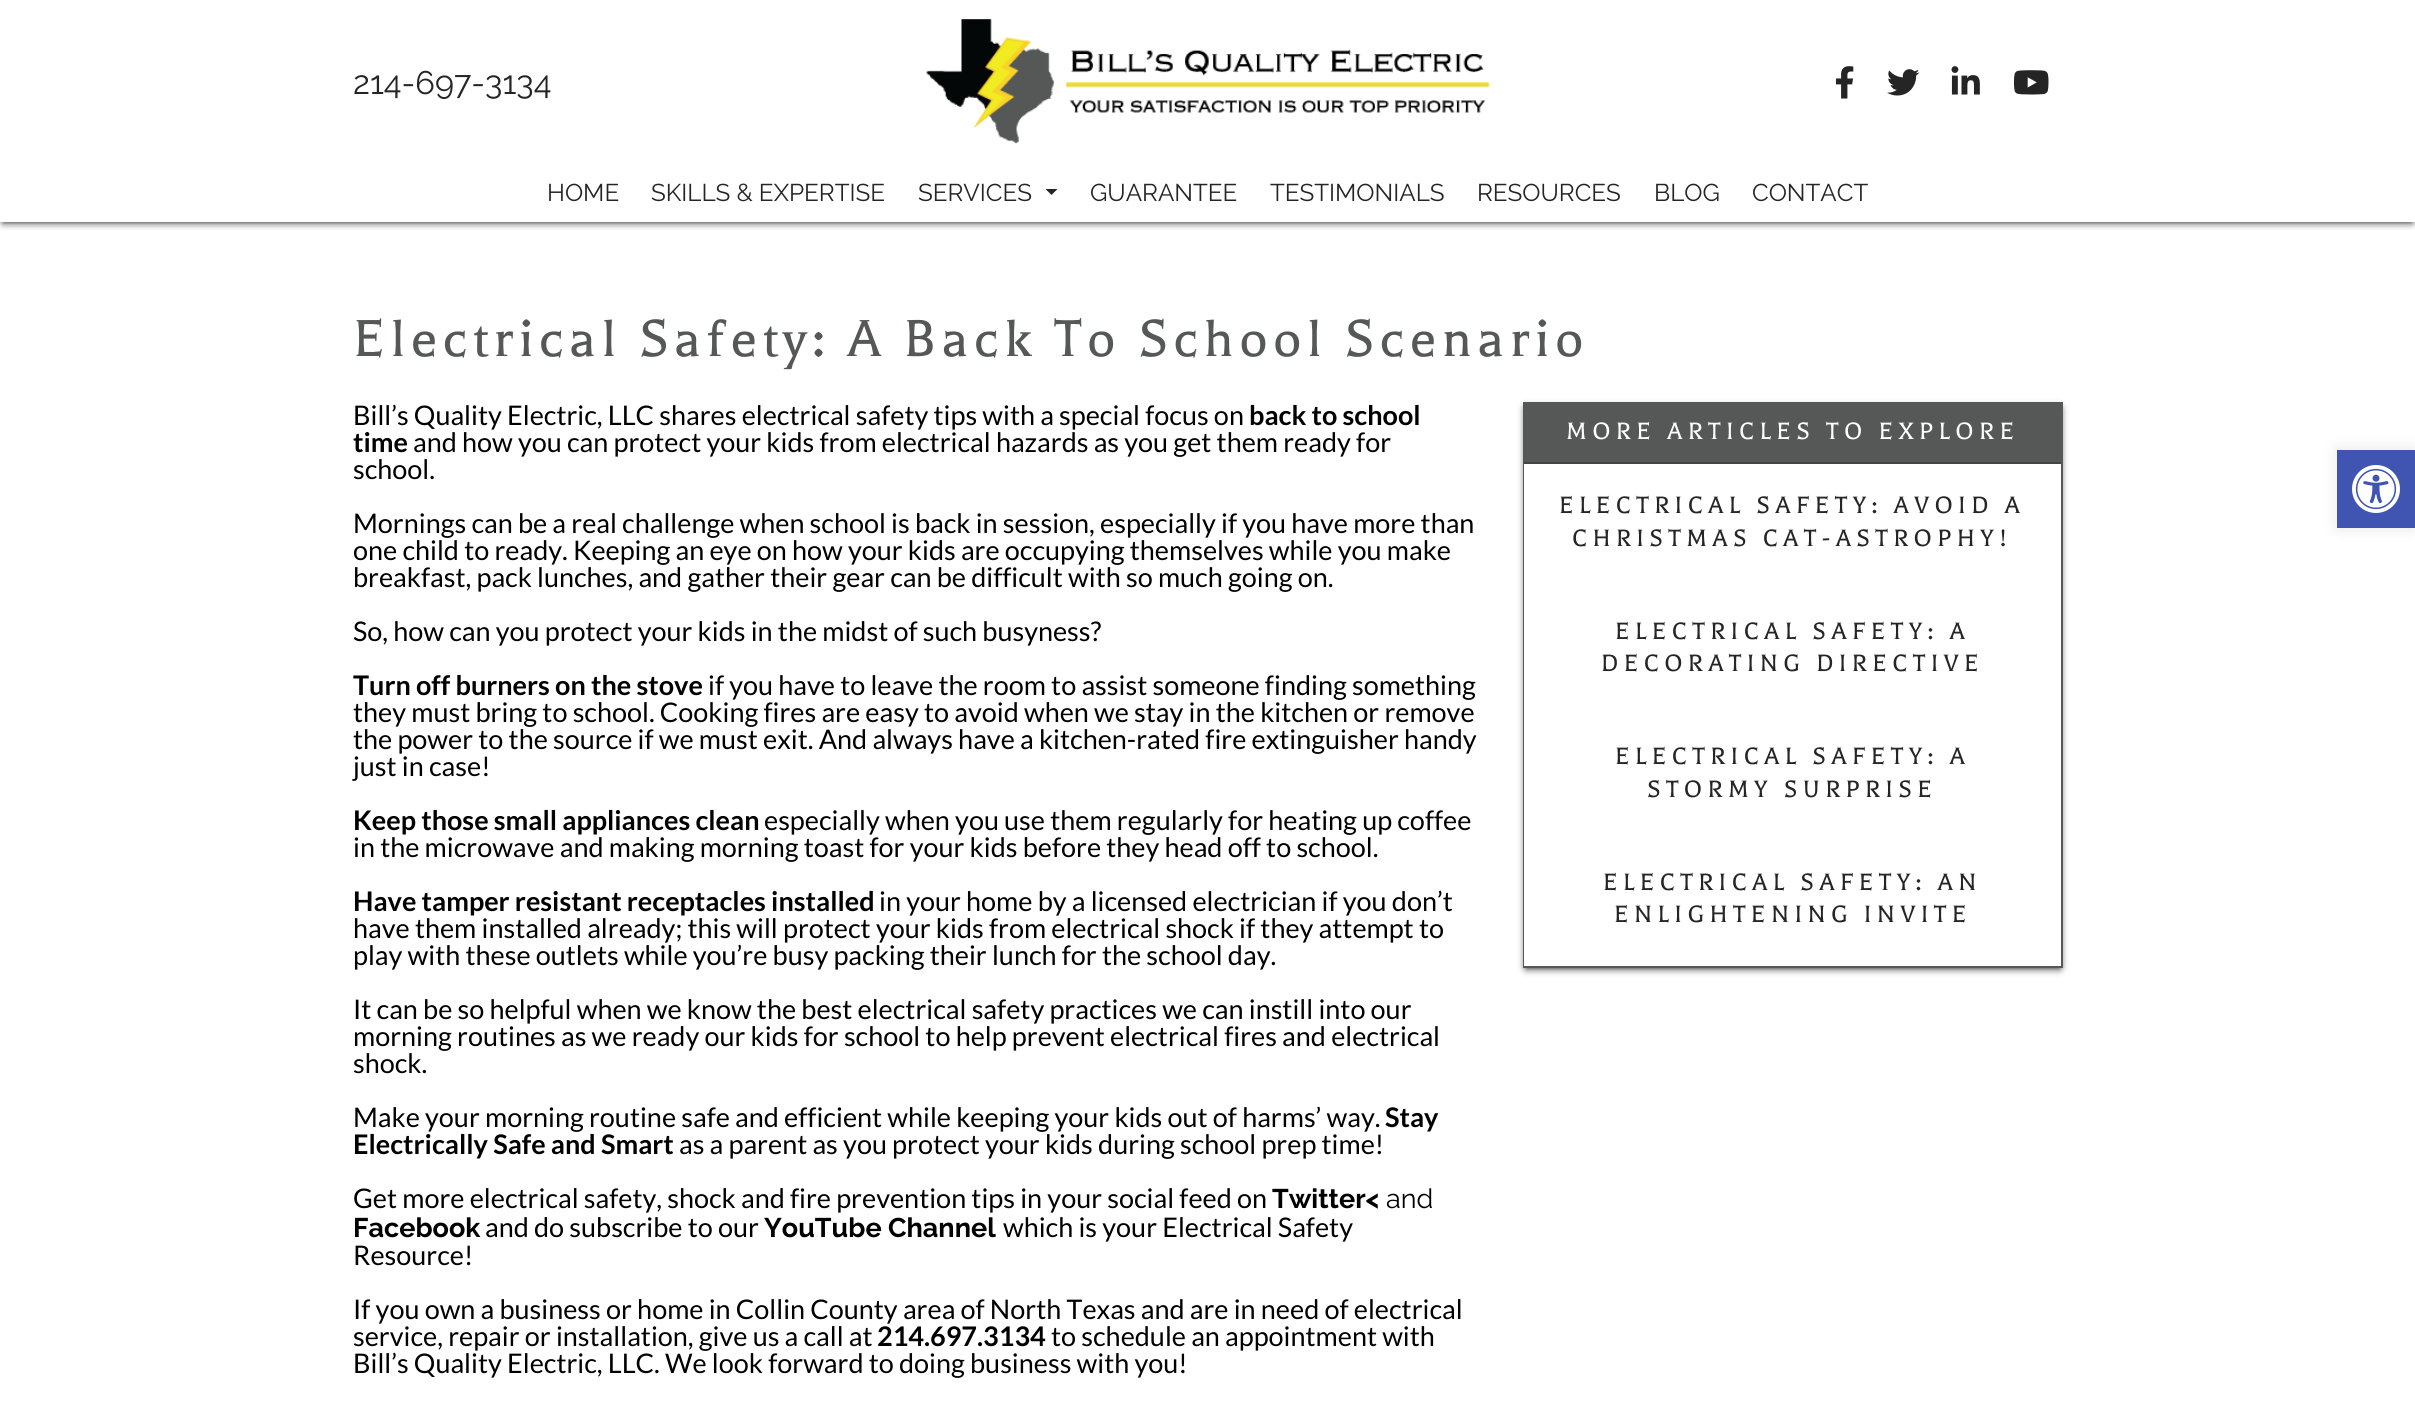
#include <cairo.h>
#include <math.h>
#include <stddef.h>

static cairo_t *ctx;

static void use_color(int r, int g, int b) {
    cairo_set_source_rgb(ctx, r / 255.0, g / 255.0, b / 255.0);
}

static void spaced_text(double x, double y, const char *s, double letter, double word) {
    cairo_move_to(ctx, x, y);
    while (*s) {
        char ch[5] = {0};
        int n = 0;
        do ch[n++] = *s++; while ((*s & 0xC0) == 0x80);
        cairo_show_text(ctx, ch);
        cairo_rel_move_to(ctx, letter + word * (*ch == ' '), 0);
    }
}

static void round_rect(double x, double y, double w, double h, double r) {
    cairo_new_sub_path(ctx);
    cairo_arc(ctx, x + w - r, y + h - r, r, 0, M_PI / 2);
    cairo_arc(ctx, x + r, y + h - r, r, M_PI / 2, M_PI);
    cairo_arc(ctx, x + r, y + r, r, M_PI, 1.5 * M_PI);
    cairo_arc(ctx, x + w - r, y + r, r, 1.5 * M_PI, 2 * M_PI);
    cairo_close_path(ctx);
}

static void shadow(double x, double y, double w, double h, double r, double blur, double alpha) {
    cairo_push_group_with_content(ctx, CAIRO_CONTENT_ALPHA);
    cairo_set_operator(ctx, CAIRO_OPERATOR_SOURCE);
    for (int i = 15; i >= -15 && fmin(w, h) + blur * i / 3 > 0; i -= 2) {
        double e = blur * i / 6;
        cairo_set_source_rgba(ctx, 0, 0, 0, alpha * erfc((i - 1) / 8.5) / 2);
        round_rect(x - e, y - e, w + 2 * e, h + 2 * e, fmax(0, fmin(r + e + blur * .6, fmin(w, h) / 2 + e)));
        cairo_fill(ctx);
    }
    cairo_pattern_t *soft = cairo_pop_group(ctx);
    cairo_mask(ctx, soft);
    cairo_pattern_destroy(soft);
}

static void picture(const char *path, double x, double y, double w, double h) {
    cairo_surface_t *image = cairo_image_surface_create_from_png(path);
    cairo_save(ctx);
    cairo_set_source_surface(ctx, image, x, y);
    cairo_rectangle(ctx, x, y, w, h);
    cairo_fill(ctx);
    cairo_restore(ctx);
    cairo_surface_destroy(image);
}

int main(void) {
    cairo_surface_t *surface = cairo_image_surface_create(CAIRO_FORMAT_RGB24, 2415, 1403);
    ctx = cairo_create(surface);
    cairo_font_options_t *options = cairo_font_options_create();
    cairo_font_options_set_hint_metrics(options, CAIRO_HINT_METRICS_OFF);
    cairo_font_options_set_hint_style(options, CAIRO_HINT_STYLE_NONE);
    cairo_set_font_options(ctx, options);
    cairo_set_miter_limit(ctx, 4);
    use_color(255, 255, 255);
    cairo_paint(ctx);
    cairo_save(ctx);
    cairo_rectangle(ctx, 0, 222, 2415, 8);
    cairo_clip(ctx);
    use_color(0, 0, 0);
    shadow(3, 6, 2409, 216, 0, 4, 1);
    cairo_restore(ctx);
    cairo_select_font_face(ctx, "Raleway", CAIRO_FONT_SLANT_NORMAL, CAIRO_FONT_WEIGHT_NORMAL);
    cairo_set_font_size(ctx, 32.5);
    use_color(37, 37, 37);
    cairo_move_to(ctx, 353, 94);
    cairo_show_text(ctx, "214-697-3134");
    picture("img1.png", 926, 19, 564, 125);
    picture("img2.png", 1835, 66, 19, 33);
    picture("img3.png", 1887, 69, 33, 27);
    picture("img4.png", 1951, 66, 29, 29);
    picture("img5.png", 2013, 70, 36, 25);
    cairo_set_font_size(ctx, 24.25);
    cairo_move_to(ctx, 547, 201);
    cairo_show_text(ctx, "HOME");
    cairo_move_to(ctx, 651, 201);
    cairo_show_text(ctx, "SKILLS & EXPERTISE");
    cairo_move_to(ctx, 918, 201);
    cairo_show_text(ctx, "SERVICES");
    cairo_new_path(ctx);
    cairo_move_to(ctx, 1045.5, 189);
    cairo_line_to(ctx, 1057.5, 189);
    cairo_line_to(ctx, 1051.5, 195);
    cairo_close_path(ctx);
    cairo_fill(ctx);
    cairo_move_to(ctx, 1090, 201);
    cairo_show_text(ctx, "GUARANTEE");
    cairo_move_to(ctx, 1270, 201);
    cairo_show_text(ctx, "TESTIMONIALS");
    cairo_move_to(ctx, 1477, 201);
    cairo_show_text(ctx, "RESOURCES");
    cairo_move_to(ctx, 1654, 201);
    cairo_show_text(ctx, "BLOG");
    cairo_move_to(ctx, 1752, 201);
    cairo_show_text(ctx, "CONTACT");
    cairo_select_font_face(ctx, "Balthazar", CAIRO_FONT_SLANT_NORMAL, CAIRO_FONT_WEIGHT_NORMAL);
    cairo_set_font_size(ctx, 59.4);
    use_color(86, 87, 87);
    spaced_text(353, 356, "Electrical Safety: A Back To School Scenario", 5.4, 0);
    cairo_select_font_face(ctx, "Lato", CAIRO_FONT_SLANT_NORMAL, CAIRO_FONT_WEIGHT_NORMAL);
    cairo_set_font_size(ctx, 27);
    use_color(0, 0, 0);
    cairo_move_to(ctx, 353, 425);
    cairo_show_text(ctx, "Bill’s Quality Electric, LLC shares electrical safety tips with a special focus on");
    cairo_select_font_face(ctx, "Lato", CAIRO_FONT_SLANT_NORMAL, CAIRO_FONT_WEIGHT_BOLD);
    cairo_move_to(ctx, 1249, 425);
    cairo_show_text(ctx, "back to school");
    cairo_move_to(ctx, 353, 452);
    cairo_show_text(ctx, "time");
    cairo_select_font_face(ctx, "Lato", CAIRO_FONT_SLANT_NORMAL, CAIRO_FONT_WEIGHT_NORMAL);
    cairo_move_to(ctx, 413, 452);
    cairo_show_text(ctx, "and how you can protect your kids from electrical hazards as you get them ready for");
    cairo_move_to(ctx, 353, 479);
    cairo_show_text(ctx, "school.");
    cairo_move_to(ctx, 353, 533);
    cairo_show_text(ctx, "Mornings can be a real challenge when school is back in session, especially if you have more than");
    cairo_move_to(ctx, 353, 560);
    cairo_show_text(ctx, "one child to ready. Keeping an eye on how your kids are occupying themselves while you make");
    cairo_move_to(ctx, 353, 587);
    cairo_show_text(ctx, "breakfast, pack lunches, and gather their gear can be difficult with so much going on.");
    cairo_move_to(ctx, 353, 641);
    cairo_show_text(ctx, "So, how can you protect your kids in the midst of such busyness?");
    cairo_select_font_face(ctx, "Lato", CAIRO_FONT_SLANT_NORMAL, CAIRO_FONT_WEIGHT_BOLD);
    cairo_move_to(ctx, 353, 695);
    cairo_show_text(ctx, "Turn off burners on the stove");
    cairo_select_font_face(ctx, "Lato", CAIRO_FONT_SLANT_NORMAL, CAIRO_FONT_WEIGHT_NORMAL);
    cairo_move_to(ctx, 708, 695);
    cairo_show_text(ctx, "if you have to leave the room to assist someone finding something");
    cairo_move_to(ctx, 353, 722);
    cairo_show_text(ctx, "they must bring to school. Cooking fires are easy to avoid when we stay in the kitchen or remove");
    cairo_move_to(ctx, 353, 749);
    cairo_show_text(ctx, "the power to the source if we must exit. And always have a kitchen-rated fire extinguisher handy");
    cairo_move_to(ctx, 353, 776);
    cairo_show_text(ctx, "just in case!");
    cairo_select_font_face(ctx, "Lato", CAIRO_FONT_SLANT_NORMAL, CAIRO_FONT_WEIGHT_BOLD);
    cairo_move_to(ctx, 353, 830);
    cairo_show_text(ctx, "Keep those small appliances clean");
    cairo_select_font_face(ctx, "Lato", CAIRO_FONT_SLANT_NORMAL, CAIRO_FONT_WEIGHT_NORMAL);
    cairo_move_to(ctx, 764, 830);
    cairo_show_text(ctx, "especially when you use them regularly for heating up coffee");
    cairo_move_to(ctx, 353, 857);
    cairo_show_text(ctx, "in the microwave and making morning toast for your kids before they head off to school.");
    cairo_select_font_face(ctx, "Lato", CAIRO_FONT_SLANT_NORMAL, CAIRO_FONT_WEIGHT_BOLD);
    cairo_move_to(ctx, 353, 911);
    cairo_show_text(ctx, "Have tamper resistant receptacles installed");
    cairo_select_font_face(ctx, "Lato", CAIRO_FONT_SLANT_NORMAL, CAIRO_FONT_WEIGHT_NORMAL);
    cairo_move_to(ctx, 879, 911);
    cairo_show_text(ctx, "in your home by a licensed electrician if you don’t");
    cairo_move_to(ctx, 353, 938);
    cairo_show_text(ctx, "have them installed already; this will protect your kids from electrical shock if they attempt to");
    cairo_move_to(ctx, 353, 965);
    cairo_show_text(ctx, "play with these outlets while you’re busy packing their lunch for the school day.");
    cairo_move_to(ctx, 353, 1019);
    cairo_show_text(ctx, "It can be so helpful when we know the best electrical safety practices we can instill into our");
    cairo_move_to(ctx, 353, 1046);
    cairo_show_text(ctx, "morning routines as we ready our kids for school to help prevent electrical fires and electrical");
    cairo_move_to(ctx, 353, 1073);
    cairo_show_text(ctx, "shock.");
    cairo_move_to(ctx, 353, 1127);
    cairo_show_text(ctx, "Make your morning routine safe and efficient while keeping your kids out of harms’ way.");
    cairo_select_font_face(ctx, "Lato", CAIRO_FONT_SLANT_NORMAL, CAIRO_FONT_WEIGHT_BOLD);
    cairo_move_to(ctx, 1385, 1127);
    cairo_show_text(ctx, "Stay");
    cairo_move_to(ctx, 353, 1154);
    cairo_show_text(ctx, "Electrically Safe and Smart");
    cairo_select_font_face(ctx, "Lato", CAIRO_FONT_SLANT_NORMAL, CAIRO_FONT_WEIGHT_NORMAL);
    cairo_move_to(ctx, 679, 1154);
    cairo_show_text(ctx, "as a parent as you protect your kids during school prep time!");
    cairo_move_to(ctx, 353, 1208);
    cairo_show_text(ctx, "Get more electrical safety, shock and fire prevention tips in your social feed on");
    cairo_select_font_face(ctx, "Raleway", CAIRO_FONT_SLANT_NORMAL, CAIRO_FONT_WEIGHT_BOLD);
    cairo_move_to(ctx, 1272, 1208);
    cairo_show_text(ctx, "Twitter<");
    cairo_select_font_face(ctx, "Raleway", CAIRO_FONT_SLANT_NORMAL, CAIRO_FONT_WEIGHT_NORMAL);
    cairo_move_to(ctx, 1386, 1208);
    cairo_show_text(ctx, "and");
    cairo_select_font_face(ctx, "Raleway", CAIRO_FONT_SLANT_NORMAL, CAIRO_FONT_WEIGHT_BOLD);
    cairo_move_to(ctx, 353, 1237);
    cairo_show_text(ctx, "Facebook");
    cairo_select_font_face(ctx, "Lato", CAIRO_FONT_SLANT_NORMAL, CAIRO_FONT_WEIGHT_NORMAL);
    cairo_move_to(ctx, 485, 1237);
    cairo_show_text(ctx, "and do subscribe to our");
    cairo_select_font_face(ctx, "Raleway", CAIRO_FONT_SLANT_NORMAL, CAIRO_FONT_WEIGHT_BOLD);
    cairo_move_to(ctx, 764, 1237);
    cairo_show_text(ctx, "YouTube Channel");
    cairo_select_font_face(ctx, "Lato", CAIRO_FONT_SLANT_NORMAL, CAIRO_FONT_WEIGHT_NORMAL);
    cairo_move_to(ctx, 1003, 1237);
    cairo_show_text(ctx, "which is your Electrical Safety");
    cairo_move_to(ctx, 353, 1265);
    cairo_show_text(ctx, "Resource!");
    cairo_move_to(ctx, 353, 1319);
    cairo_show_text(ctx, "If you own a business or home in Collin County area of North Texas and are in need of electrical");
    cairo_move_to(ctx, 353, 1346);
    cairo_show_text(ctx, "service, repair or installation, give us a call at");
    cairo_select_font_face(ctx, "Lato", CAIRO_FONT_SLANT_NORMAL, CAIRO_FONT_WEIGHT_BOLD);
    cairo_move_to(ctx, 877, 1346);
    cairo_show_text(ctx, "214.697.3134");
    cairo_select_font_face(ctx, "Lato", CAIRO_FONT_SLANT_NORMAL, CAIRO_FONT_WEIGHT_NORMAL);
    cairo_move_to(ctx, 1051, 1346);
    cairo_show_text(ctx, "to schedule an appointment with");
    cairo_move_to(ctx, 353, 1373);
    cairo_show_text(ctx, "Bill’s Quality Electric, LLC. We look forward to doing business with you!");
    use_color(0, 0, 0);
    shadow(1526, 408, 534, 560, 0, 4, 1);
    cairo_rectangle(ctx, 1524, 403, 538, 564);
    use_color(86, 87, 87);
    cairo_stroke(ctx);
    cairo_rectangle(ctx, 1525, 404, 536, 58);
    cairo_fill(ctx);
    use_color(68, 68, 68);
    cairo_rectangle(ctx, 1524, 462, 537, 2);
    cairo_fill(ctx);
    cairo_select_font_face(ctx, "Balthazar", CAIRO_FONT_SLANT_NORMAL, CAIRO_FONT_WEIGHT_NORMAL);
    use_color(255, 255, 255);
    spaced_text(1566, 439, "MORE ARTICLES TO EXPLORE", 5.4, 0);
    cairo_rectangle(ctx, 1524, 464, 537, 502);
    cairo_fill(ctx);
    use_color(37, 37, 37);
    spaced_text(1559, 513, "ELECTRICAL SAFETY: AVOID A", 5.4, 0);
    spaced_text(1572, 546, "CHRISTMAS CAT-ASTROPHY!", 5.4, 0);
    spaced_text(1615, 639, "ELECTRICAL SAFETY: A", 5.4, 0);
    spaced_text(1601, 671, "DECORATING DIRECTIVE", 5.4, 0);
    spaced_text(1615, 764, "ELECTRICAL SAFETY: A", 5.4, 0);
    spaced_text(1647, 797, "STORMY SURPRISE", 5.4, 0);
    spaced_text(1603, 890, "ELECTRICAL SAFETY: AN", 5.4, 0);
    spaced_text(1614, 922, "ENLIGHTENING INVITE", 5.4, 0);
    use_color(0, 0, 0);
    shadow(2337, 450, 78, 78, 0, 7.5, 0.1);
    use_color(64, 84, 178);
    cairo_rectangle(ctx, 2337, 450, 78, 78);
    cairo_fill(ctx);
    picture("img6.png", 2352, 465, 48, 48);
    cairo_surface_write_to_png(surface, "result.png");
    cairo_font_options_destroy(options);
    cairo_destroy(ctx);
    cairo_surface_destroy(surface);
    return 0;
}
